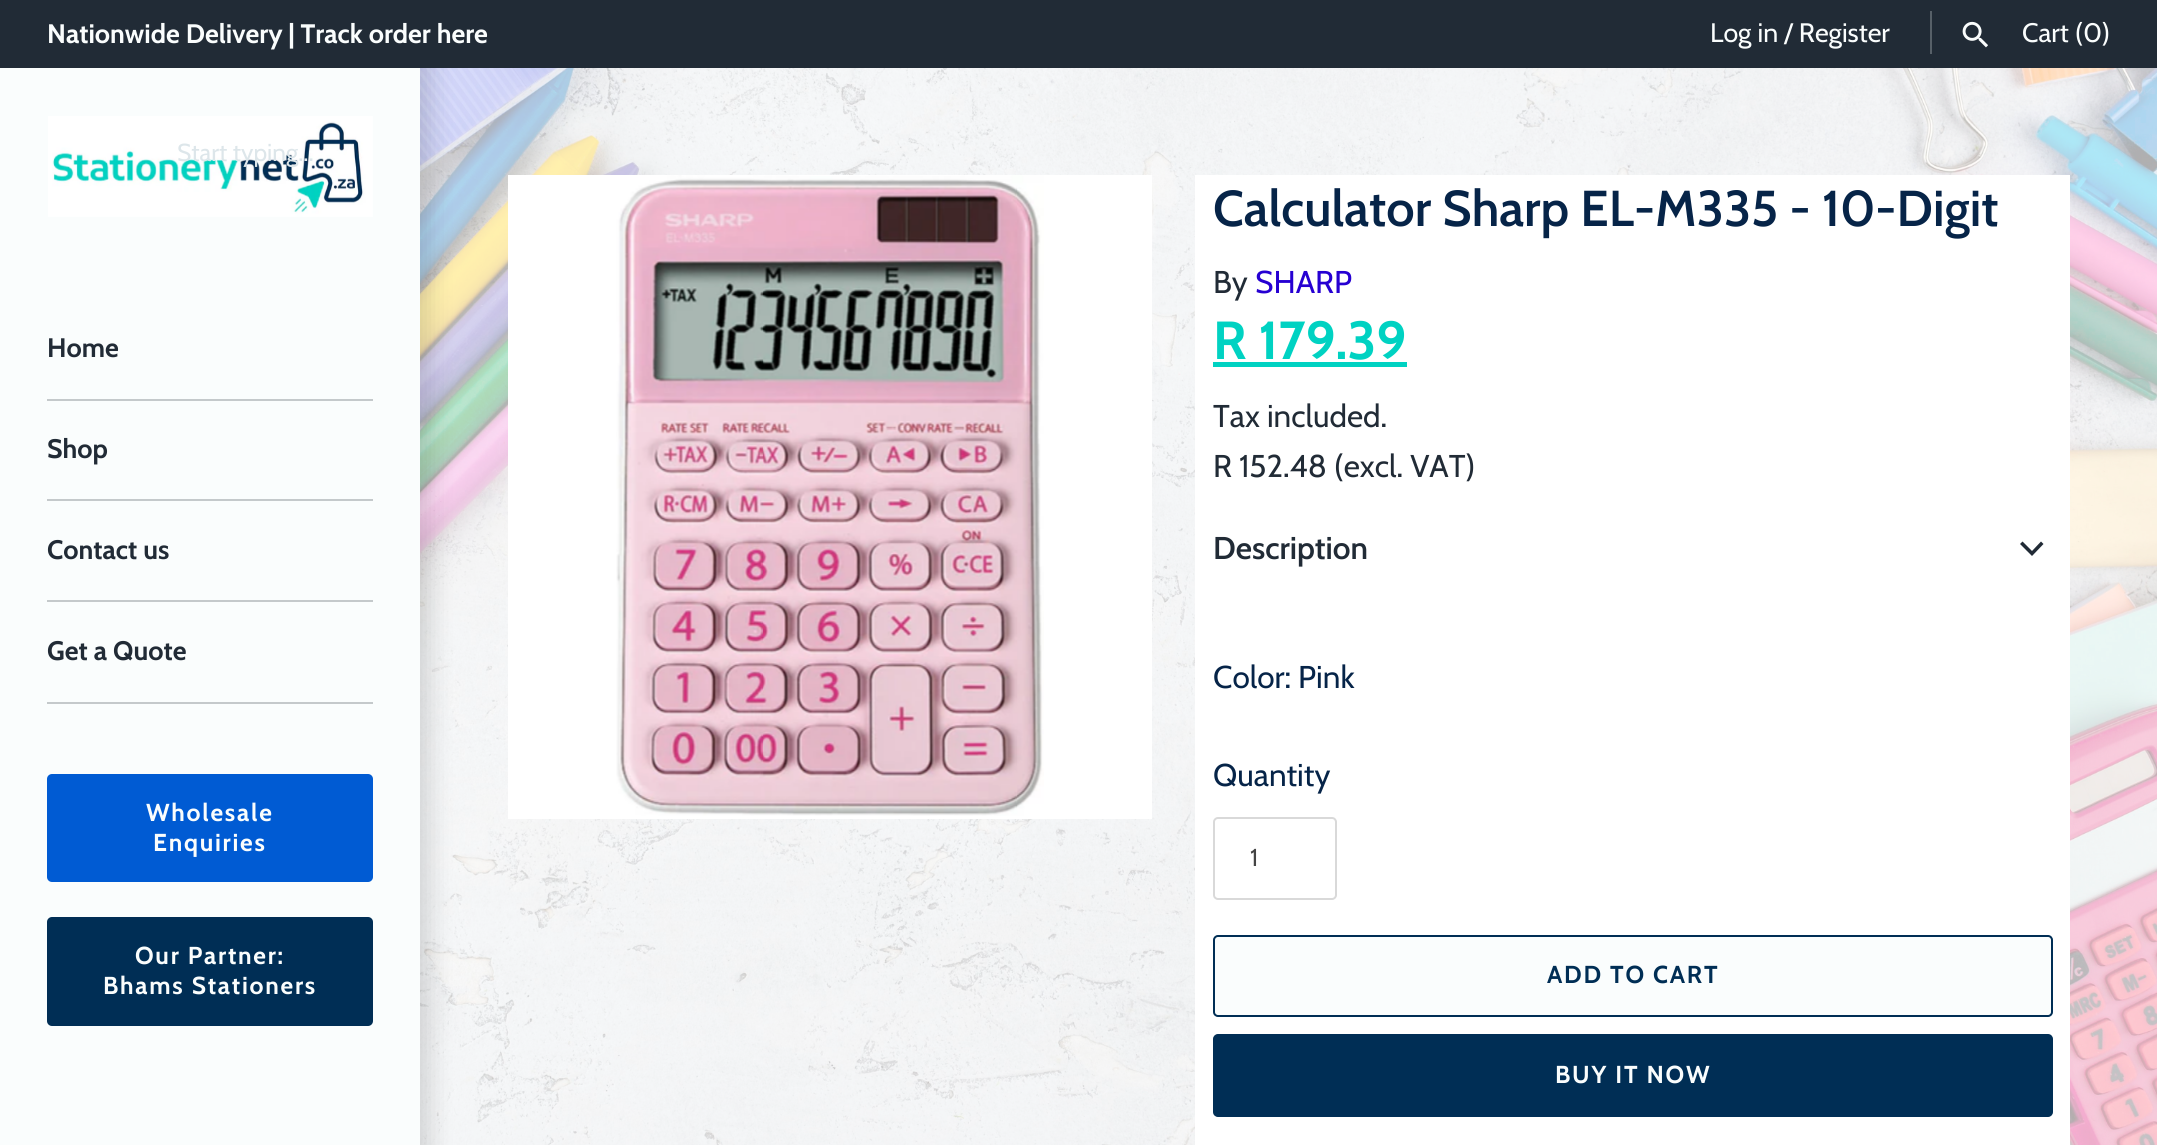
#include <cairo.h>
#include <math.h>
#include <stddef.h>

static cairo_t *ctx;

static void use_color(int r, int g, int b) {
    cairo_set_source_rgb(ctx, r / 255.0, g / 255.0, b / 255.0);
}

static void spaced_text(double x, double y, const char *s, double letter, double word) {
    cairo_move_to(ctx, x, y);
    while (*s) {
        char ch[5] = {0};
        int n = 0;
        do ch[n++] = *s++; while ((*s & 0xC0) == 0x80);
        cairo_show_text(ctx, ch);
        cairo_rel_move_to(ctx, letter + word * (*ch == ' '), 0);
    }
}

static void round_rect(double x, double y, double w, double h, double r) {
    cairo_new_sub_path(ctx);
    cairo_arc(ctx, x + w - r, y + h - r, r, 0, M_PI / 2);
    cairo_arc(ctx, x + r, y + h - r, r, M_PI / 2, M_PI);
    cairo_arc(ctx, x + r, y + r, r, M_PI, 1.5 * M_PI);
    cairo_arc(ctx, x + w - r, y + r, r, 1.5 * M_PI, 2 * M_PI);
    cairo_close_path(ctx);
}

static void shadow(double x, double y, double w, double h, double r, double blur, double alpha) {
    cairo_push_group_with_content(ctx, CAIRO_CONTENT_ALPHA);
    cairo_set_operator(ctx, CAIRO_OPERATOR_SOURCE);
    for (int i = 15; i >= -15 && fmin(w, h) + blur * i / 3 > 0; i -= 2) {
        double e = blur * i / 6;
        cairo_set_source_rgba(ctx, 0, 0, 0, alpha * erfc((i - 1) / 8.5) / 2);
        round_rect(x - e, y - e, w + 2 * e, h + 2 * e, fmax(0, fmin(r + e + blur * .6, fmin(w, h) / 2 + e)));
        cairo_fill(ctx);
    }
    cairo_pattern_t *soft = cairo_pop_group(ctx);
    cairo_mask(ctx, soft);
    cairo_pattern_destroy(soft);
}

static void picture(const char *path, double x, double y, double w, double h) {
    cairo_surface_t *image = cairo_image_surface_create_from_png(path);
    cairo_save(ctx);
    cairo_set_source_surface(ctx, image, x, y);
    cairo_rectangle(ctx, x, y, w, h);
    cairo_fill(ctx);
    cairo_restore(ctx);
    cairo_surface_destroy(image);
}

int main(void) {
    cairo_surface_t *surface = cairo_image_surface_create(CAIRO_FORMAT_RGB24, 2157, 1145);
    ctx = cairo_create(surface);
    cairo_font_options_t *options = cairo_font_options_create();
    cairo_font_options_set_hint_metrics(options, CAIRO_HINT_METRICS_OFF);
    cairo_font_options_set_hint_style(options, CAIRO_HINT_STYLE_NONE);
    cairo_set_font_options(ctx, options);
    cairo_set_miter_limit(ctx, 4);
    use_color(255, 255, 255);
    cairo_paint(ctx);
    picture("img4.png", 420, 68, 1737, 1077);
    use_color(0, 0, 0);
    shadow(-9, 60, 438, 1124, 0, 13, 0.15);
    use_color(33, 43, 54);
    cairo_rectangle(ctx, 0, 0, 2157, 68);
    cairo_fill(ctx);
    cairo_select_font_face(ctx, "Cabin", CAIRO_FONT_SLANT_NORMAL, CAIRO_FONT_WEIGHT_BOLD);
    cairo_set_font_size(ctx, 26.75);
    use_color(250, 253, 253);
    cairo_move_to(ctx, 47, 43);
    cairo_show_text(ctx, "Nationwide Delivery | Track order here");
    cairo_select_font_face(ctx, "Cabin", CAIRO_FONT_SLANT_NORMAL, CAIRO_FONT_WEIGHT_NORMAL);
    cairo_move_to(ctx, 1710, 42);
    cairo_show_text(ctx, "Log in / Register");
    use_color(87, 96, 104);
    cairo_rectangle(ctx, 1930, 11, 2, 43);
    cairo_fill(ctx);
    picture("img1.png", 1962, 21, 26, 27);
    use_color(250, 253, 253);
    cairo_move_to(ctx, 2022, 42);
    cairo_show_text(ctx, "Cart (0)");
    cairo_rectangle(ctx, 0, 68, 420, 1077);
    cairo_fill(ctx);
    picture("img2.png", 48, 116, 325, 101);
    cairo_set_font_size(ctx, 24.5);
    use_color(221, 230, 234);
    cairo_move_to(ctx, 177, 161);
    cairo_show_text(ctx, "Start typing...");
    use_color(196, 201, 203);
    cairo_rectangle(ctx, 47, 399, 326, 2);
    cairo_fill(ctx);
    cairo_select_font_face(ctx, "Cabin", CAIRO_FONT_SLANT_NORMAL, CAIRO_FONT_WEIGHT_BOLD);
    cairo_set_font_size(ctx, 26.75);
    use_color(33, 43, 54);
    cairo_move_to(ctx, 47, 357);
    cairo_show_text(ctx, "Home");
    use_color(196, 201, 203);
    cairo_rectangle(ctx, 47, 499, 326, 2);
    cairo_fill(ctx);
    use_color(33, 43, 54);
    cairo_move_to(ctx, 47, 458);
    cairo_show_text(ctx, "Shop");
    use_color(196, 201, 203);
    cairo_rectangle(ctx, 47, 600, 326, 2);
    cairo_fill(ctx);
    use_color(33, 43, 54);
    cairo_move_to(ctx, 47, 559);
    cairo_show_text(ctx, "Contact us");
    use_color(196, 201, 203);
    cairo_rectangle(ctx, 47, 702, 326, 2);
    cairo_fill(ctx);
    use_color(33, 43, 54);
    cairo_move_to(ctx, 47, 660);
    cairo_show_text(ctx, "Get a Quote");
    use_color(0, 91, 211);
    round_rect(47, 774, 326, 108, 5);
    cairo_fill(ctx);
    cairo_set_font_size(ctx, 24.5);
    use_color(250, 253, 253);
    spaced_text(146, 821, "Wholesale", 1.75, 0);
    spaced_text(153, 851, "Enquiries", 1.75, 0);
    use_color(0, 46, 85);
    round_rect(47, 917, 326, 109, 5);
    cairo_fill(ctx);
    use_color(250, 253, 253);
    spaced_text(135, 964, "Our Partner:", 1.75, 0);
    spaced_text(103, 994, "Bhams Stationers", 1.75, 0);
    use_color(255, 255, 255);
    cairo_rectangle(ctx, 508, 175, 644, 644);
    cairo_fill(ctx);
    picture("img3.png", 616, 175, 428, 641);
    cairo_rectangle(ctx, 1195, 175, 875, 970);
    cairo_fill(ctx);
    cairo_select_font_face(ctx, "Cabin SemiBold", CAIRO_FONT_SLANT_NORMAL, CAIRO_FONT_WEIGHT_NORMAL);
    cairo_set_font_size(ctx, 50.4);
    use_color(6, 36, 72);
    cairo_move_to(ctx, 1213, 226);
    cairo_show_text(ctx, "Calculator Sharp EL-M335 - 10-Digit");
    cairo_select_font_face(ctx, "Cabin", CAIRO_FONT_SLANT_NORMAL, CAIRO_FONT_WEIGHT_NORMAL);
    cairo_set_font_size(ctx, 31.5);
    use_color(33, 43, 54);
    cairo_move_to(ctx, 1213, 293);
    cairo_show_text(ctx, "By");
    use_color(38, 0, 210);
    cairo_move_to(ctx, 1255, 293);
    cairo_show_text(ctx, "SHARP");
    cairo_select_font_face(ctx, "Cabin", CAIRO_FONT_SLANT_NORMAL, CAIRO_FONT_WEIGHT_BOLD);
    cairo_set_font_size(ctx, 53.5);
    use_color(0, 210, 194);
    cairo_move_to(ctx, 1213, 359);
    cairo_show_text(ctx, "R 179.39");
    cairo_rectangle(ctx, 1213, 362, 194, 5);
    cairo_fill(ctx);
    cairo_select_font_face(ctx, "Cabin", CAIRO_FONT_SLANT_NORMAL, CAIRO_FONT_WEIGHT_NORMAL);
    cairo_set_font_size(ctx, 31.5);
    use_color(33, 43, 54);
    cairo_move_to(ctx, 1213, 427);
    cairo_show_text(ctx, "Tax included.");
    cairo_move_to(ctx, 1213, 477);
    cairo_show_text(ctx, "R 152.48 (excl. VAT)");
    cairo_select_font_face(ctx, "Cabin SemiBold", CAIRO_FONT_SLANT_NORMAL, CAIRO_FONT_WEIGHT_NORMAL);
    cairo_move_to(ctx, 1213, 559);
    cairo_show_text(ctx, "Description");
    cairo_new_path(ctx);
    cairo_move_to(ctx, 2032, 556);
    cairo_line_to(ctx, 2020, 544);
    cairo_line_to(ctx, 2022.5, 541.5);
    cairo_line_to(ctx, 2032, 551);
    cairo_line_to(ctx, 2041, 541.5);
    cairo_line_to(ctx, 2043.5, 544);
    cairo_close_path(ctx);
    cairo_fill(ctx);
    cairo_select_font_face(ctx, "Cabin", CAIRO_FONT_SLANT_NORMAL, CAIRO_FONT_WEIGHT_NORMAL);
    use_color(6, 36, 72);
    cairo_move_to(ctx, 1213, 688);
    cairo_show_text(ctx, "Color: Pink");
    cairo_move_to(ctx, 1213, 786);
    cairo_show_text(ctx, "Quantity");
    round_rect(1214, 818, 122, 81, 4);
    use_color(217, 217, 217);
    cairo_stroke(ctx);
    cairo_set_font_size(ctx, 24.5);
    use_color(68, 68, 68);
    cairo_move_to(ctx, 1250, 866);
    cairo_show_text(ctx, "1");
    use_color(250, 253, 253);
    round_rect(1214, 936, 838, 80, 4);
    cairo_fill_preserve(ctx);
    use_color(0, 46, 85);
    cairo_stroke(ctx);
    cairo_select_font_face(ctx, "Cabin", CAIRO_FONT_SLANT_NORMAL, CAIRO_FONT_WEIGHT_BOLD);
    spaced_text(1547, 983, "ADD TO CART", 1.75, 0);
    round_rect(1214, 1035, 838, 81, 4);
    cairo_fill_preserve(ctx);
    cairo_stroke(ctx);
    use_color(250, 253, 253);
    spaced_text(1555, 1083, "BUY IT NOW", 1.75, 0);
    cairo_surface_write_to_png(surface, "result.png");
    cairo_font_options_destroy(options);
    cairo_destroy(ctx);
    cairo_surface_destroy(surface);
    return 0;
}
